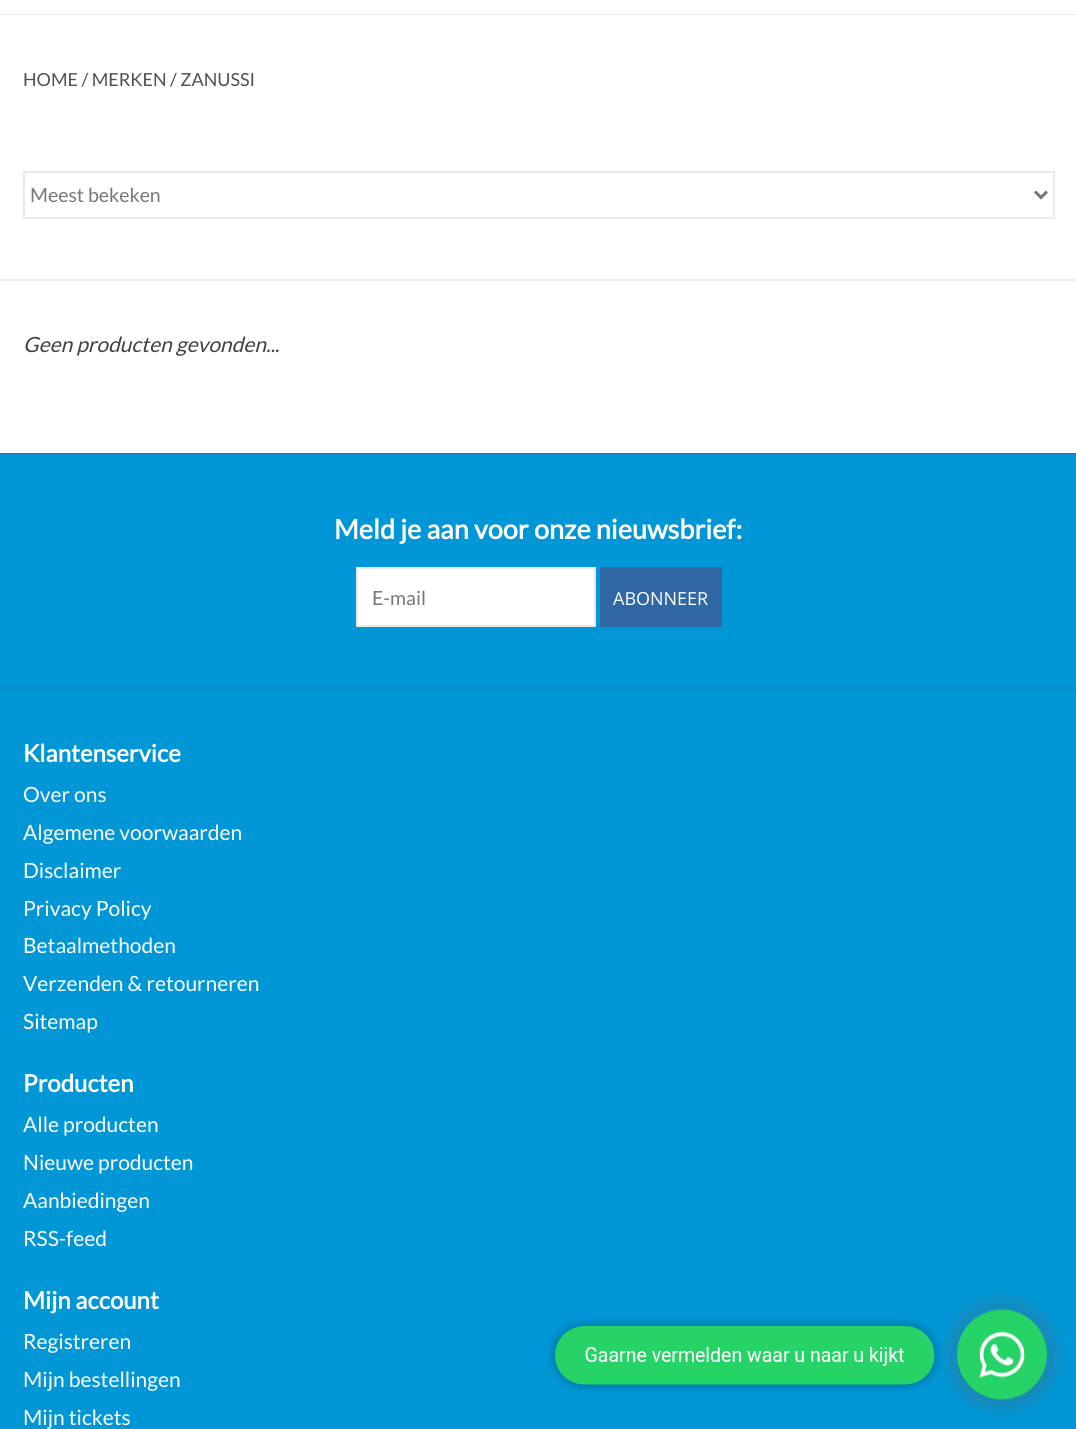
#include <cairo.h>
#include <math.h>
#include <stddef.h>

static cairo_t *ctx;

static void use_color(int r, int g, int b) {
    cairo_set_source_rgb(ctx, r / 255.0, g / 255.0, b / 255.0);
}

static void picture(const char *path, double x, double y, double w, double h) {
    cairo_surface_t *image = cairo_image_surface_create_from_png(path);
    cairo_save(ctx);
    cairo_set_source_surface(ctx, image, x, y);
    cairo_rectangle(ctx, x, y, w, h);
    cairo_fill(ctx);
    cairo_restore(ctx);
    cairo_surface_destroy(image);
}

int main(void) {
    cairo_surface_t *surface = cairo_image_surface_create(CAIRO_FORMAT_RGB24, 1076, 1429);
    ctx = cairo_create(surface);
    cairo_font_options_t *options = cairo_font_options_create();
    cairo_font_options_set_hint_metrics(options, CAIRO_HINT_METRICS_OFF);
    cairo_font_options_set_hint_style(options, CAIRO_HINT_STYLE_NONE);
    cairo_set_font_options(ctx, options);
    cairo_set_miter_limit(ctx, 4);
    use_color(255, 255, 255);
    cairo_paint(ctx);
    use_color(234, 234, 234);
    cairo_rectangle(ctx, 0, 14, 1076, 1);
    cairo_fill(ctx);
    cairo_select_font_face(ctx, "Lato", CAIRO_FONT_SLANT_NORMAL, CAIRO_FONT_WEIGHT_NORMAL);
    cairo_set_font_size(ctx, 18);
    use_color(80, 80, 80);
    cairo_move_to(ctx, 23, 86);
    cairo_show_text(ctx, "HOME / MERKEN / ZANUSSI");
    use_color(240, 240, 240);
    cairo_rectangle(ctx, 0, 279, 1076, 2);
    cairo_fill(ctx);
    cairo_rectangle(ctx, 24, 172, 1030, 46);
    use_color(234, 234, 234);
    cairo_stroke(ctx);
    cairo_new_path(ctx);
    cairo_move_to(ctx, 1035, 191.5);
    cairo_line_to(ctx, 1041, 197.5);
    cairo_line_to(ctx, 1047, 191.5);
    use_color(119, 119, 119);
    cairo_set_line_width(ctx, 3);
    cairo_stroke(ctx);
    cairo_set_font_size(ctx, 19.5);
    cairo_move_to(ctx, 30, 202);
    cairo_show_text(ctx, "Meest bekeken");
    cairo_select_font_face(ctx, "Lato", CAIRO_FONT_SLANT_ITALIC, CAIRO_FONT_WEIGHT_NORMAL);
    cairo_set_font_size(ctx, 21);
    use_color(65, 65, 65);
    cairo_move_to(ctx, 23, 352);
    cairo_show_text(ctx, "Geen producten gevonden...");
    use_color(1, 151, 214);
    cairo_rectangle(ctx, 0, 455, 1076, 974);
    cairo_fill(ctx);
    use_color(1, 138, 196);
    cairo_rectangle(ctx, 0, 453, 1076, 2);
    cairo_fill(ctx);
    cairo_select_font_face(ctx, "Lato", CAIRO_FONT_SLANT_NORMAL, CAIRO_FONT_WEIGHT_BOLD);
    cairo_set_font_size(ctx, 27);
    use_color(255, 255, 255);
    cairo_move_to(ctx, 334, 539);
    cairo_show_text(ctx, "Meld je aan voor onze nieuwsbrief:");
    cairo_rectangle(ctx, 357, 568, 238, 58);
    cairo_fill_preserve(ctx);
    use_color(233, 233, 233);
    cairo_set_line_width(ctx, 2);
    cairo_stroke(ctx);
    cairo_select_font_face(ctx, "Lato", CAIRO_FONT_SLANT_NORMAL, CAIRO_FONT_WEIGHT_NORMAL);
    cairo_set_font_size(ctx, 19.5);
    use_color(119, 119, 119);
    cairo_move_to(ctx, 372, 605);
    cairo_show_text(ctx, "E-mail");
    use_color(47, 104, 164);
    cairo_rectangle(ctx, 600, 567, 122, 60);
    cairo_fill(ctx);
    cairo_select_font_face(ctx, "Open Sans", CAIRO_FONT_SLANT_NORMAL, CAIRO_FONT_WEIGHT_NORMAL);
    cairo_set_font_size(ctx, 18);
    use_color(255, 255, 255);
    cairo_move_to(ctx, 613, 605);
    cairo_show_text(ctx, "ABONNEER");
    use_color(1, 138, 196);
    cairo_rectangle(ctx, 0, 687, 1076, 2);
    cairo_fill(ctx);
    cairo_select_font_face(ctx, "Lato", CAIRO_FONT_SLANT_NORMAL, CAIRO_FONT_WEIGHT_BOLD);
    cairo_set_font_size(ctx, 24);
    use_color(255, 255, 255);
    cairo_move_to(ctx, 23, 762);
    cairo_show_text(ctx, "Klantenservice");
    cairo_select_font_face(ctx, "Lato", CAIRO_FONT_SLANT_NORMAL, CAIRO_FONT_WEIGHT_NORMAL);
    cairo_set_font_size(ctx, 21);
    cairo_move_to(ctx, 23, 802);
    cairo_show_text(ctx, "Over ons");
    cairo_move_to(ctx, 23, 840);
    cairo_show_text(ctx, "Algemene voorwaarden");
    cairo_move_to(ctx, 23, 878);
    cairo_show_text(ctx, "Disclaimer");
    cairo_move_to(ctx, 23, 916);
    cairo_show_text(ctx, "Privacy Policy");
    cairo_move_to(ctx, 23, 953);
    cairo_show_text(ctx, "Betaalmethoden");
    cairo_move_to(ctx, 23, 991);
    cairo_show_text(ctx, "Verzenden & retourneren");
    cairo_move_to(ctx, 23, 1029);
    cairo_show_text(ctx, "Sitemap");
    cairo_select_font_face(ctx, "Lato", CAIRO_FONT_SLANT_NORMAL, CAIRO_FONT_WEIGHT_BOLD);
    cairo_set_font_size(ctx, 24);
    cairo_move_to(ctx, 23, 1092);
    cairo_show_text(ctx, "Producten");
    cairo_select_font_face(ctx, "Lato", CAIRO_FONT_SLANT_NORMAL, CAIRO_FONT_WEIGHT_NORMAL);
    cairo_set_font_size(ctx, 21);
    cairo_move_to(ctx, 23, 1132);
    cairo_show_text(ctx, "Alle producten");
    cairo_move_to(ctx, 23, 1170);
    cairo_show_text(ctx, "Nieuwe producten");
    cairo_move_to(ctx, 23, 1208);
    cairo_show_text(ctx, "Aanbiedingen");
    cairo_move_to(ctx, 23, 1246);
    cairo_show_text(ctx, "RSS-feed");
    cairo_select_font_face(ctx, "Lato", CAIRO_FONT_SLANT_NORMAL, CAIRO_FONT_WEIGHT_BOLD);
    cairo_set_font_size(ctx, 24);
    cairo_move_to(ctx, 23, 1309);
    cairo_show_text(ctx, "Mijn account");
    cairo_select_font_face(ctx, "Lato", CAIRO_FONT_SLANT_NORMAL, CAIRO_FONT_WEIGHT_NORMAL);
    cairo_set_font_size(ctx, 21);
    cairo_move_to(ctx, 23, 1349);
    cairo_show_text(ctx, "Registreren");
    cairo_move_to(ctx, 23, 1387);
    cairo_show_text(ctx, "Mijn bestellingen");
    cairo_move_to(ctx, 23, 1425);
    cairo_show_text(ctx, "Mijn tickets");
    picture("img1.png", 547, 1318, 395, 75);
    picture("img2.png", 941, 1293, 122, 123);
    cairo_surface_write_to_png(surface, "result.png");
    cairo_font_options_destroy(options);
    cairo_destroy(ctx);
    cairo_surface_destroy(surface);
    return 0;
}
